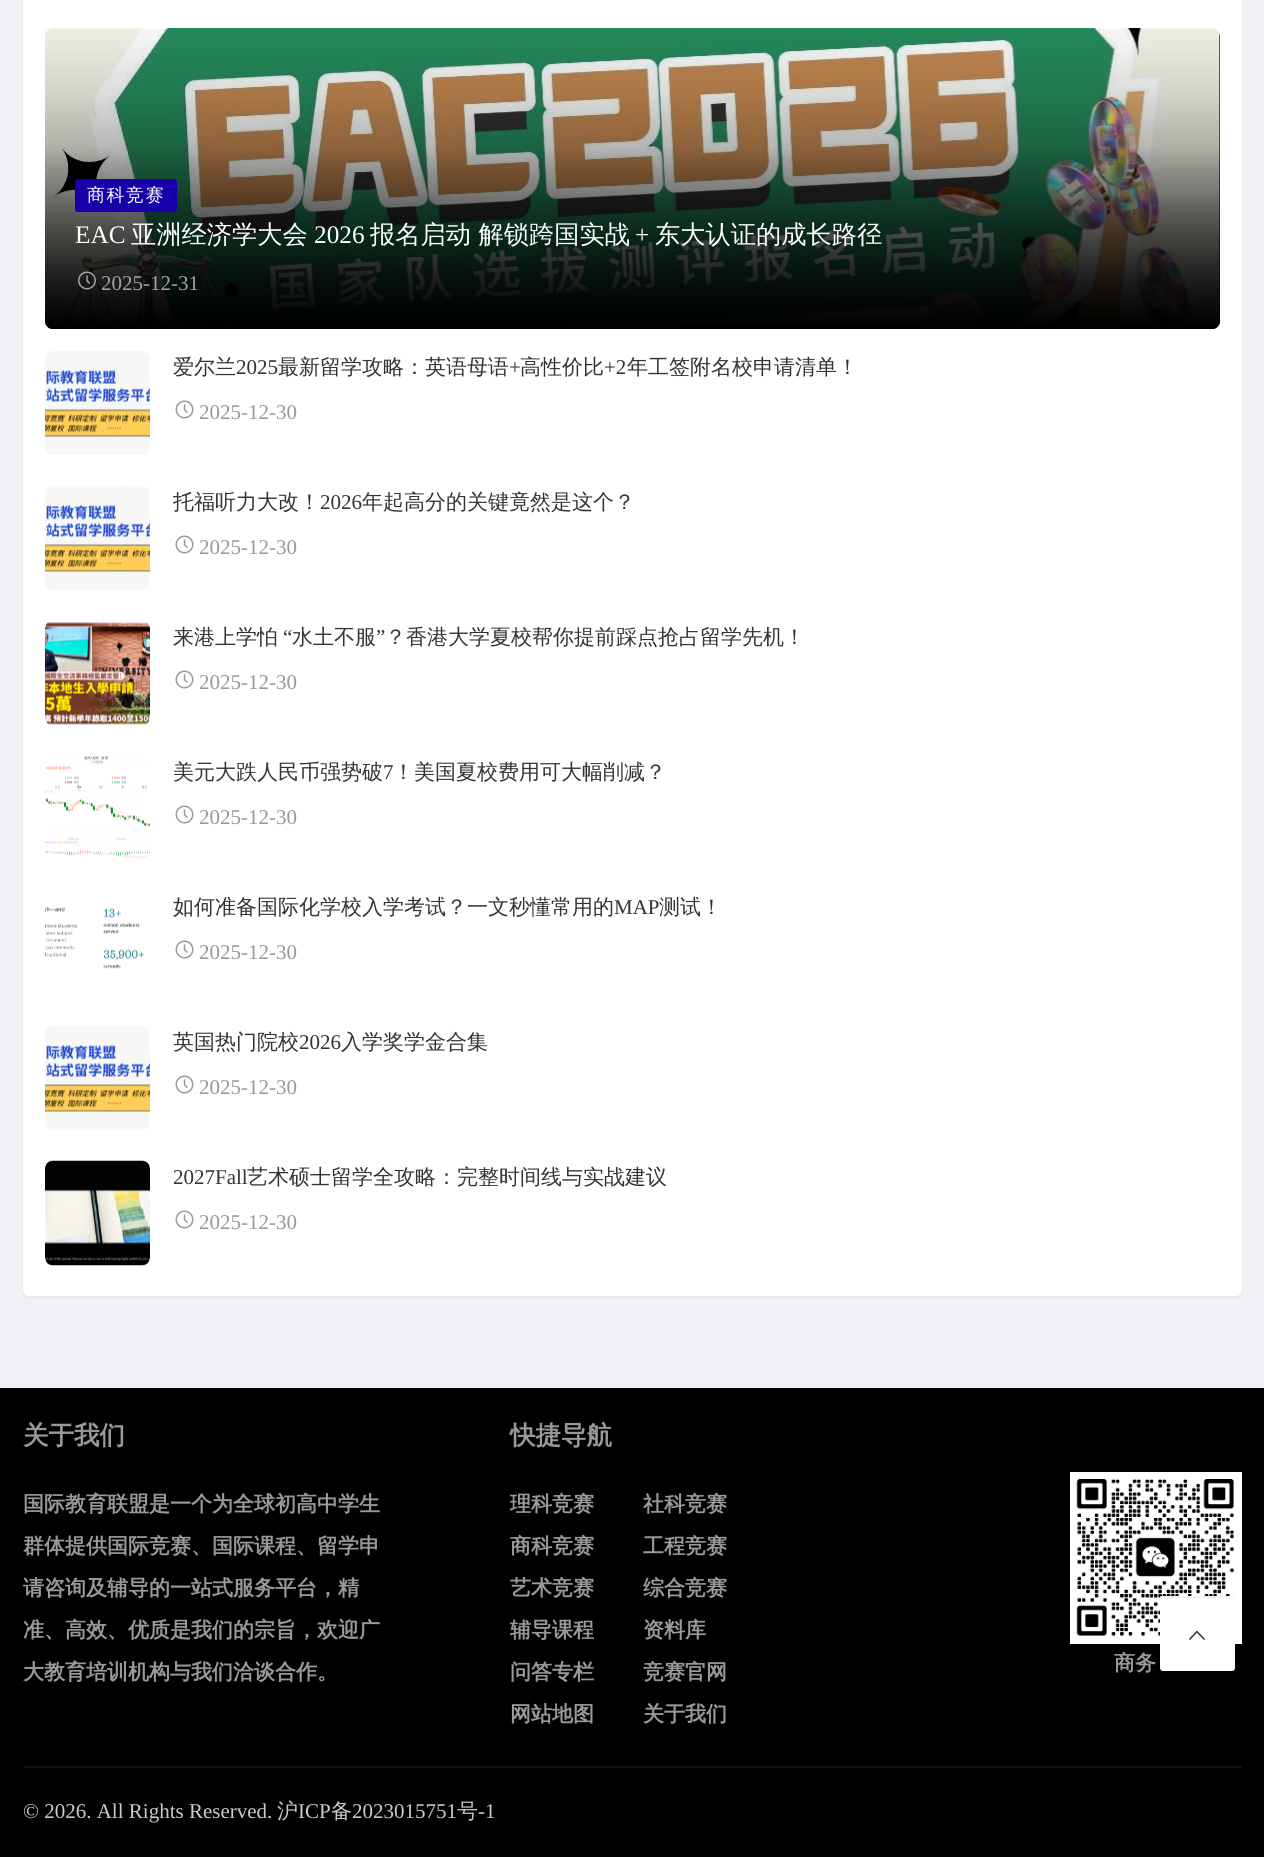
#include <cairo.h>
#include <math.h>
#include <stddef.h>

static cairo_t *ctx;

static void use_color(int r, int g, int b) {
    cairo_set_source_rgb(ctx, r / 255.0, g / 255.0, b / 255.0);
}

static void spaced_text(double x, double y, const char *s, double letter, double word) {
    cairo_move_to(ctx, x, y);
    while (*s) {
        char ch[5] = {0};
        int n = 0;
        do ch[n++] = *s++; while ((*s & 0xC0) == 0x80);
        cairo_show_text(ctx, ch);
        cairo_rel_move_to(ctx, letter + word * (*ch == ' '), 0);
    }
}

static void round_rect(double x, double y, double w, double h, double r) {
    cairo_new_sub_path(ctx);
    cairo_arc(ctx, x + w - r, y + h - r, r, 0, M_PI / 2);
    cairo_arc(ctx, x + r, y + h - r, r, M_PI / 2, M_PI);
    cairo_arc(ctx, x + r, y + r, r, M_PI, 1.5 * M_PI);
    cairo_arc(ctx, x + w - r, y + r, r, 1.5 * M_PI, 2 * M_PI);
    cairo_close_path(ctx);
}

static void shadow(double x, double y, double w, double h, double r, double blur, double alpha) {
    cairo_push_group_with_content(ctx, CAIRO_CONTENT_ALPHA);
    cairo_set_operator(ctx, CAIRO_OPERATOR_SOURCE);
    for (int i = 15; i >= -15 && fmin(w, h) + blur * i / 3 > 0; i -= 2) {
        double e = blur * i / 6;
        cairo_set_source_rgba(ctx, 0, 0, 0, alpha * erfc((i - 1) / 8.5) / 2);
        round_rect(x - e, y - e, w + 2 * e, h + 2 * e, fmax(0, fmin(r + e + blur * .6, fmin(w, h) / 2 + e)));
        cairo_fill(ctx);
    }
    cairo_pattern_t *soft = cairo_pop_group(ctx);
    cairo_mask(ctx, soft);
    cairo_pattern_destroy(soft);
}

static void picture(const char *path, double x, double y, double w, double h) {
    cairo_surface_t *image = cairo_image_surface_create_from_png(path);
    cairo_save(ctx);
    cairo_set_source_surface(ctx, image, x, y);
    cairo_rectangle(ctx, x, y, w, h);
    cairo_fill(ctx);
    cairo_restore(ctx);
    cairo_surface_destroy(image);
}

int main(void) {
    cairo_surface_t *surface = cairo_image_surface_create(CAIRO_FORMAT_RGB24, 1264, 1857);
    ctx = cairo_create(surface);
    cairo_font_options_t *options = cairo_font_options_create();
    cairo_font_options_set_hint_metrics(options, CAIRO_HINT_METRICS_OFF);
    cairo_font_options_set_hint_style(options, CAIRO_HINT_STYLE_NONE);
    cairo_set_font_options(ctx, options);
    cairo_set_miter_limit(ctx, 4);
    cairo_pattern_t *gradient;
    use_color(240, 241, 244);
    cairo_paint(ctx);
    use_color(0, 0, 0);
    shadow(23, -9, 1219, 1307, 6, 1, 0.05);
    use_color(255, 255, 255);
    round_rect(23, -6, 1219, 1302, 6);
    cairo_fill(ctx);
    use_color(51, 51, 51);
    round_rect(45, 29, 1175, 300, 8);
    cairo_fill(ctx);
    picture("img1.png", 45, 28, 1175, 300);
    gradient = cairo_pattern_create_linear(632, 28, 632, 329);
    cairo_pattern_add_color_stop_rgba(gradient, 0.4, 0, 0, 0, 0);
    cairo_pattern_add_color_stop_rgba(gradient, 1, 0, 0, 0, 0.6);
    cairo_set_source(ctx, gradient);
    cairo_pattern_destroy(gradient);
    round_rect(45, 29, 1175, 300, 8);
    cairo_fill(ctx);
    gradient = cairo_pattern_create_linear(632, 329, 632, -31);
    cairo_pattern_add_color_stop_rgba(gradient, 0, 0, 0, 0, 1);
    cairo_pattern_add_color_stop_rgba(gradient, 0.05, 0, 0, 0, 0.92);
    cairo_pattern_add_color_stop_rgba(gradient, 0.11, 0, 0, 0, 0.83);
    cairo_pattern_add_color_stop_rgba(gradient, 0.16, 0, 0, 0, 0.75);
    cairo_pattern_add_color_stop_rgba(gradient, 0.21, 0, 0, 0, 0.67);
    cairo_pattern_add_color_stop_rgba(gradient, 0.27, 0, 0, 0, 0.59);
    cairo_pattern_add_color_stop_rgba(gradient, 0.33, 0, 0, 0, 0.51);
    cairo_pattern_add_color_stop_rgba(gradient, 0.38, 0, 0, 0, 0.43);
    cairo_pattern_add_color_stop_rgba(gradient, 0.45, 0, 0, 0, 0.36);
    cairo_pattern_add_color_stop_rgba(gradient, 0.51, 0, 0, 0, 0.28);
    cairo_pattern_add_color_stop_rgba(gradient, 0.58, 0, 0, 0, 0.21);
    cairo_pattern_add_color_stop_rgba(gradient, 0.65, 0, 0, 0, 0.14);
    cairo_pattern_add_color_stop_rgba(gradient, 0.73, 0, 0, 0, 0.09);
    cairo_pattern_add_color_stop_rgba(gradient, 0.81, 0, 0, 0, 0.04);
    cairo_pattern_add_color_stop_rgba(gradient, 0.91, 0, 0, 0, 0.01);
    cairo_pattern_add_color_stop_rgba(gradient, 1, 0, 0, 0, 0);
    cairo_set_source(ctx, gradient);
    cairo_pattern_destroy(gradient);
    round_rect(45, 29, 1175, 300, 8);
    cairo_fill(ctx);
    use_color(23, 0, 170);
    round_rect(75, 179, 102, 33, 3);
    cairo_fill(ctx);
    cairo_select_font_face(ctx, "WenQuanYi Zen Hei Medium", CAIRO_FONT_SLANT_NORMAL, CAIRO_FONT_WEIGHT_NORMAL);
    cairo_set_font_size(ctx, 18);
    use_color(255, 255, 255);
    spaced_text(87, 201, "商科竞赛", 1.5, 0);
    cairo_select_font_face(ctx, "Liberation Serif", CAIRO_FONT_SLANT_NORMAL, CAIRO_FONT_WEIGHT_NORMAL);
    cairo_set_font_size(ctx, 25.25);
    cairo_move_to(ctx, 75, 243);
    cairo_show_text(ctx, "EAC");
    cairo_select_font_face(ctx, "WenQuanYi Zen Hei Medium", CAIRO_FONT_SLANT_NORMAL, CAIRO_FONT_WEIGHT_NORMAL);
    cairo_move_to(ctx, 131, 243);
    cairo_show_text(ctx, "亚洲经济学大会");
    cairo_select_font_face(ctx, "Liberation Serif", CAIRO_FONT_SLANT_NORMAL, CAIRO_FONT_WEIGHT_NORMAL);
    cairo_move_to(ctx, 314, 243);
    cairo_show_text(ctx, "2026");
    cairo_select_font_face(ctx, "WenQuanYi Zen Hei Medium", CAIRO_FONT_SLANT_NORMAL, CAIRO_FONT_WEIGHT_NORMAL);
    cairo_move_to(ctx, 370, 243);
    cairo_show_text(ctx, "报名启动 解锁跨国实战");
    cairo_select_font_face(ctx, "Liberation Serif", CAIRO_FONT_SLANT_NORMAL, CAIRO_FONT_WEIGHT_NORMAL);
    cairo_move_to(ctx, 635, 243);
    cairo_show_text(ctx, "+");
    cairo_select_font_face(ctx, "WenQuanYi Zen Hei Medium", CAIRO_FONT_SLANT_NORMAL, CAIRO_FONT_WEIGHT_NORMAL);
    cairo_move_to(ctx, 655, 243);
    cairo_show_text(ctx, "东大认证的成长路径");
    picture("img2.png", 78, 271, 18, 19);
    cairo_select_font_face(ctx, "Liberation Serif", CAIRO_FONT_SLANT_NORMAL, CAIRO_FONT_WEIGHT_NORMAL);
    cairo_set_font_size(ctx, 21);
    use_color(160, 162, 161);
    cairo_move_to(ctx, 101, 290);
    cairo_show_text(ctx, "2025-12-31");
    picture("img3.png", 45, 351, 105, 104);
    cairo_select_font_face(ctx, "WenQuanYi Zen Hei Medium", CAIRO_FONT_SLANT_NORMAL, CAIRO_FONT_WEIGHT_NORMAL);
    use_color(51, 51, 51);
    cairo_move_to(ctx, 173, 374);
    cairo_show_text(ctx, "爱尔兰");
    cairo_select_font_face(ctx, "Liberation Serif", CAIRO_FONT_SLANT_NORMAL, CAIRO_FONT_WEIGHT_NORMAL);
    cairo_move_to(ctx, 236, 374);
    cairo_show_text(ctx, "2025");
    cairo_select_font_face(ctx, "WenQuanYi Zen Hei Medium", CAIRO_FONT_SLANT_NORMAL, CAIRO_FONT_WEIGHT_NORMAL);
    cairo_move_to(ctx, 278, 374);
    cairo_show_text(ctx, "最新留学攻略：英语母语");
    cairo_select_font_face(ctx, "Liberation Serif", CAIRO_FONT_SLANT_NORMAL, CAIRO_FONT_WEIGHT_NORMAL);
    cairo_move_to(ctx, 509, 374);
    cairo_show_text(ctx, "+");
    cairo_select_font_face(ctx, "WenQuanYi Zen Hei Medium", CAIRO_FONT_SLANT_NORMAL, CAIRO_FONT_WEIGHT_NORMAL);
    cairo_move_to(ctx, 520, 374);
    cairo_show_text(ctx, "高性价比");
    cairo_select_font_face(ctx, "Liberation Serif", CAIRO_FONT_SLANT_NORMAL, CAIRO_FONT_WEIGHT_NORMAL);
    cairo_move_to(ctx, 604, 374);
    cairo_show_text(ctx, "+2");
    cairo_select_font_face(ctx, "WenQuanYi Zen Hei Medium", CAIRO_FONT_SLANT_NORMAL, CAIRO_FONT_WEIGHT_NORMAL);
    cairo_move_to(ctx, 627, 374);
    cairo_show_text(ctx, "年工签附名校申请清单！");
    picture("img4.png", 175, 400, 19, 19);
    cairo_select_font_face(ctx, "Liberation Serif", CAIRO_FONT_SLANT_NORMAL, CAIRO_FONT_WEIGHT_NORMAL);
    use_color(153, 153, 153);
    cairo_move_to(ctx, 199, 419);
    cairo_show_text(ctx, "2025-12-30");
    picture("img3.png", 45, 486, 105, 104);
    cairo_save(ctx);
    cairo_rectangle(ctx, 173, 486, 1047, 77);
    cairo_clip(ctx);
    cairo_select_font_face(ctx, "WenQuanYi Zen Hei Medium", CAIRO_FONT_SLANT_NORMAL, CAIRO_FONT_WEIGHT_NORMAL);
    use_color(51, 51, 51);
    cairo_move_to(ctx, 173, 509);
    cairo_show_text(ctx, "托福听力大改！");
    cairo_restore(ctx);
    use_color(51, 51, 51);
    cairo_move_to(ctx, 320, 509);
    cairo_show_text(ctx, "2026");
    cairo_select_font_face(ctx, "WenQuanYi Zen Hei Medium", CAIRO_FONT_SLANT_NORMAL, CAIRO_FONT_WEIGHT_NORMAL);
    cairo_move_to(ctx, 362, 509);
    cairo_show_text(ctx, "年起高分的关键竟然是这个？");
    picture("img4.png", 175, 535, 19, 19);
    cairo_select_font_face(ctx, "Liberation Serif", CAIRO_FONT_SLANT_NORMAL, CAIRO_FONT_WEIGHT_NORMAL);
    use_color(153, 153, 153);
    cairo_move_to(ctx, 199, 554);
    cairo_show_text(ctx, "2025-12-30");
    picture("img5.png", 45, 622, 105, 103);
    cairo_select_font_face(ctx, "WenQuanYi Zen Hei Medium", CAIRO_FONT_SLANT_NORMAL, CAIRO_FONT_WEIGHT_NORMAL);
    use_color(51, 51, 51);
    cairo_move_to(ctx, 173, 644);
    cairo_show_text(ctx, "来港上学怕");
    cairo_select_font_face(ctx, "Liberation Serif", CAIRO_FONT_SLANT_NORMAL, CAIRO_FONT_WEIGHT_NORMAL);
    cairo_move_to(ctx, 283, 644);
    cairo_show_text(ctx, "“");
    cairo_select_font_face(ctx, "WenQuanYi Zen Hei Medium", CAIRO_FONT_SLANT_NORMAL, CAIRO_FONT_WEIGHT_NORMAL);
    cairo_move_to(ctx, 292, 644);
    cairo_show_text(ctx, "水土不服");
    cairo_select_font_face(ctx, "Liberation Serif", CAIRO_FONT_SLANT_NORMAL, CAIRO_FONT_WEIGHT_NORMAL);
    cairo_move_to(ctx, 376, 644);
    cairo_show_text(ctx, "”");
    cairo_select_font_face(ctx, "WenQuanYi Zen Hei Medium", CAIRO_FONT_SLANT_NORMAL, CAIRO_FONT_WEIGHT_NORMAL);
    cairo_move_to(ctx, 385, 644);
    cairo_show_text(ctx, "？香港大学夏校帮你提前踩点抢占留学先机！");
    picture("img4.png", 175, 670, 19, 19);
    cairo_select_font_face(ctx, "Liberation Serif", CAIRO_FONT_SLANT_NORMAL, CAIRO_FONT_WEIGHT_NORMAL);
    use_color(153, 153, 153);
    cairo_move_to(ctx, 199, 689);
    cairo_show_text(ctx, "2025-12-30");
    picture("img6.png", 45, 756, 105, 103);
    cairo_select_font_face(ctx, "WenQuanYi Zen Hei Medium", CAIRO_FONT_SLANT_NORMAL, CAIRO_FONT_WEIGHT_NORMAL);
    use_color(51, 51, 51);
    cairo_move_to(ctx, 173, 779);
    cairo_show_text(ctx, "美元大跌人民币强势破");
    cairo_select_font_face(ctx, "Liberation Serif", CAIRO_FONT_SLANT_NORMAL, CAIRO_FONT_WEIGHT_NORMAL);
    cairo_move_to(ctx, 383, 779);
    cairo_show_text(ctx, "7");
    cairo_select_font_face(ctx, "WenQuanYi Zen Hei Medium", CAIRO_FONT_SLANT_NORMAL, CAIRO_FONT_WEIGHT_NORMAL);
    cairo_move_to(ctx, 393, 779);
    cairo_show_text(ctx, "！美国夏校费用可大幅削减？");
    picture("img4.png", 175, 805, 19, 19);
    cairo_select_font_face(ctx, "Liberation Serif", CAIRO_FONT_SLANT_NORMAL, CAIRO_FONT_WEIGHT_NORMAL);
    use_color(153, 153, 153);
    cairo_move_to(ctx, 199, 824);
    cairo_show_text(ctx, "2025-12-30");
    picture("img7.png", 45, 906, 99, 63);
    cairo_select_font_face(ctx, "WenQuanYi Zen Hei Medium", CAIRO_FONT_SLANT_NORMAL, CAIRO_FONT_WEIGHT_NORMAL);
    use_color(51, 51, 51);
    cairo_move_to(ctx, 173, 914);
    cairo_show_text(ctx, "如何准备国际化学校入学考试？一文秒懂常用的");
    cairo_select_font_face(ctx, "Liberation Serif", CAIRO_FONT_SLANT_NORMAL, CAIRO_FONT_WEIGHT_NORMAL);
    cairo_move_to(ctx, 614, 914);
    cairo_show_text(ctx, "MAP");
    cairo_select_font_face(ctx, "WenQuanYi Zen Hei Medium", CAIRO_FONT_SLANT_NORMAL, CAIRO_FONT_WEIGHT_NORMAL);
    cairo_move_to(ctx, 659, 914);
    cairo_show_text(ctx, "测试！");
    picture("img4.png", 175, 940, 19, 19);
    cairo_select_font_face(ctx, "Liberation Serif", CAIRO_FONT_SLANT_NORMAL, CAIRO_FONT_WEIGHT_NORMAL);
    use_color(153, 153, 153);
    cairo_move_to(ctx, 199, 959);
    cairo_show_text(ctx, "2025-12-30");
    picture("img3.png", 45, 1026, 105, 104);
    cairo_select_font_face(ctx, "WenQuanYi Zen Hei Medium", CAIRO_FONT_SLANT_NORMAL, CAIRO_FONT_WEIGHT_NORMAL);
    use_color(51, 51, 51);
    cairo_move_to(ctx, 173, 1049);
    cairo_show_text(ctx, "英国热门院校");
    cairo_select_font_face(ctx, "Liberation Serif", CAIRO_FONT_SLANT_NORMAL, CAIRO_FONT_WEIGHT_NORMAL);
    cairo_move_to(ctx, 299, 1049);
    cairo_show_text(ctx, "2026");
    cairo_select_font_face(ctx, "WenQuanYi Zen Hei Medium", CAIRO_FONT_SLANT_NORMAL, CAIRO_FONT_WEIGHT_NORMAL);
    cairo_move_to(ctx, 341, 1049);
    cairo_show_text(ctx, "入学奖学金合集");
    picture("img4.png", 175, 1075, 19, 19);
    cairo_select_font_face(ctx, "Liberation Serif", CAIRO_FONT_SLANT_NORMAL, CAIRO_FONT_WEIGHT_NORMAL);
    use_color(153, 153, 153);
    cairo_move_to(ctx, 199, 1094);
    cairo_show_text(ctx, "2025-12-30");
    picture("img8.png", 45, 1160, 105, 106);
    use_color(51, 51, 51);
    cairo_move_to(ctx, 173, 1184);
    cairo_show_text(ctx, "2027Fall");
    cairo_select_font_face(ctx, "WenQuanYi Zen Hei Medium", CAIRO_FONT_SLANT_NORMAL, CAIRO_FONT_WEIGHT_NORMAL);
    cairo_move_to(ctx, 247, 1184);
    cairo_show_text(ctx, "艺术硕士留学全攻略：完整时间线与实战建议");
    picture("img4.png", 175, 1210, 19, 19);
    cairo_select_font_face(ctx, "Liberation Serif", CAIRO_FONT_SLANT_NORMAL, CAIRO_FONT_WEIGHT_NORMAL);
    use_color(153, 153, 153);
    cairo_move_to(ctx, 199, 1229);
    cairo_show_text(ctx, "2025-12-30");
    use_color(0, 0, 0);
    cairo_rectangle(ctx, 0, 1388, 1264, 469);
    cairo_fill(ctx);
    cairo_select_font_face(ctx, "WenQuanYi Zen Hei", CAIRO_FONT_SLANT_NORMAL, CAIRO_FONT_WEIGHT_BOLD);
    cairo_set_font_size(ctx, 25.5);
    use_color(153, 153, 153);
    cairo_move_to(ctx, 23, 1444);
    cairo_show_text(ctx, "关于我们");
    cairo_set_font_size(ctx, 21);
    cairo_move_to(ctx, 23, 1511);
    cairo_show_text(ctx, "国际教育联盟是一个为全球初高中学生");
    cairo_move_to(ctx, 23, 1553);
    cairo_show_text(ctx, "群体提供国际竞赛、国际课程、留学申");
    cairo_move_to(ctx, 23, 1595);
    cairo_show_text(ctx, "请咨询及辅导的一站式服务平台，精");
    cairo_move_to(ctx, 23, 1637);
    cairo_show_text(ctx, "准、高效、优质是我们的宗旨，欢迎广");
    cairo_move_to(ctx, 23, 1679);
    cairo_show_text(ctx, "大教育培训机构与我们洽谈合作。");
    cairo_set_font_size(ctx, 25.5);
    cairo_move_to(ctx, 510, 1444);
    cairo_show_text(ctx, "快捷导航");
    cairo_set_font_size(ctx, 21);
    cairo_move_to(ctx, 510, 1511);
    cairo_show_text(ctx, "理科竞赛");
    cairo_move_to(ctx, 643, 1511);
    cairo_show_text(ctx, "社科竞赛");
    cairo_move_to(ctx, 510, 1553);
    cairo_show_text(ctx, "商科竞赛");
    cairo_move_to(ctx, 643, 1553);
    cairo_show_text(ctx, "工程竞赛");
    cairo_move_to(ctx, 510, 1595);
    cairo_show_text(ctx, "艺术竞赛");
    cairo_move_to(ctx, 643, 1595);
    cairo_show_text(ctx, "综合竞赛");
    cairo_move_to(ctx, 510, 1637);
    cairo_show_text(ctx, "辅导课程");
    cairo_move_to(ctx, 643, 1637);
    cairo_show_text(ctx, "资料库");
    cairo_move_to(ctx, 510, 1679);
    cairo_show_text(ctx, "问答专栏");
    cairo_move_to(ctx, 643, 1679);
    cairo_show_text(ctx, "竞赛官网");
    cairo_move_to(ctx, 510, 1721);
    cairo_show_text(ctx, "网站地图");
    cairo_move_to(ctx, 643, 1721);
    cairo_show_text(ctx, "关于我们");
    use_color(255, 255, 255);
    cairo_rectangle(ctx, 1070, 1472, 172, 172);
    cairo_fill(ctx);
    picture("img9.png", 1076, 1479, 158, 157);
    use_color(153, 153, 153);
    cairo_move_to(ctx, 1114, 1670);
    cairo_show_text(ctx, "商务");
    use_color(15, 15, 15);
    cairo_rectangle(ctx, 23, 1766, 1219, 2);
    cairo_fill(ctx);
    cairo_select_font_face(ctx, "Liberation Serif", CAIRO_FONT_SLANT_NORMAL, CAIRO_FONT_WEIGHT_NORMAL);
    use_color(204, 204, 204);
    cairo_move_to(ctx, 23, 1818);
    cairo_show_text(ctx, "© 2026. All Rights Reserved.");
    cairo_select_font_face(ctx, "WenQuanYi Zen Hei Medium", CAIRO_FONT_SLANT_NORMAL, CAIRO_FONT_WEIGHT_NORMAL);
    cairo_move_to(ctx, 277, 1818);
    cairo_show_text(ctx, "沪");
    cairo_select_font_face(ctx, "Liberation Serif", CAIRO_FONT_SLANT_NORMAL, CAIRO_FONT_WEIGHT_NORMAL);
    cairo_move_to(ctx, 298, 1818);
    cairo_show_text(ctx, "ICP");
    cairo_select_font_face(ctx, "WenQuanYi Zen Hei Medium", CAIRO_FONT_SLANT_NORMAL, CAIRO_FONT_WEIGHT_NORMAL);
    cairo_move_to(ctx, 331, 1818);
    cairo_show_text(ctx, "备");
    cairo_select_font_face(ctx, "Liberation Serif", CAIRO_FONT_SLANT_NORMAL, CAIRO_FONT_WEIGHT_NORMAL);
    cairo_move_to(ctx, 352, 1818);
    cairo_show_text(ctx, "2023015751");
    cairo_select_font_face(ctx, "WenQuanYi Zen Hei Medium", CAIRO_FONT_SLANT_NORMAL, CAIRO_FONT_WEIGHT_NORMAL);
    cairo_move_to(ctx, 457, 1818);
    cairo_show_text(ctx, "号");
    cairo_select_font_face(ctx, "Liberation Serif", CAIRO_FONT_SLANT_NORMAL, CAIRO_FONT_WEIGHT_NORMAL);
    cairo_move_to(ctx, 478, 1818);
    cairo_show_text(ctx, "-1");
    use_color(255, 255, 255);
    round_rect(1160, 1596, 75, 75, 3);
    cairo_fill(ctx);
    use_color(240, 241, 244);
    cairo_new_path(ctx);
    cairo_move_to(ctx, 1160, 1596);
    cairo_line_to(ctx, 1234, 1596);
    cairo_line_to(ctx, 1233, 1598);
    cairo_line_to(ctx, 1161, 1598);
    cairo_close_path(ctx);
    cairo_fill(ctx);
    picture("img10.png", 1189, 1630, 16, 10);
    cairo_surface_write_to_png(surface, "result.png");
    cairo_font_options_destroy(options);
    cairo_destroy(ctx);
    cairo_surface_destroy(surface);
    return 0;
}
